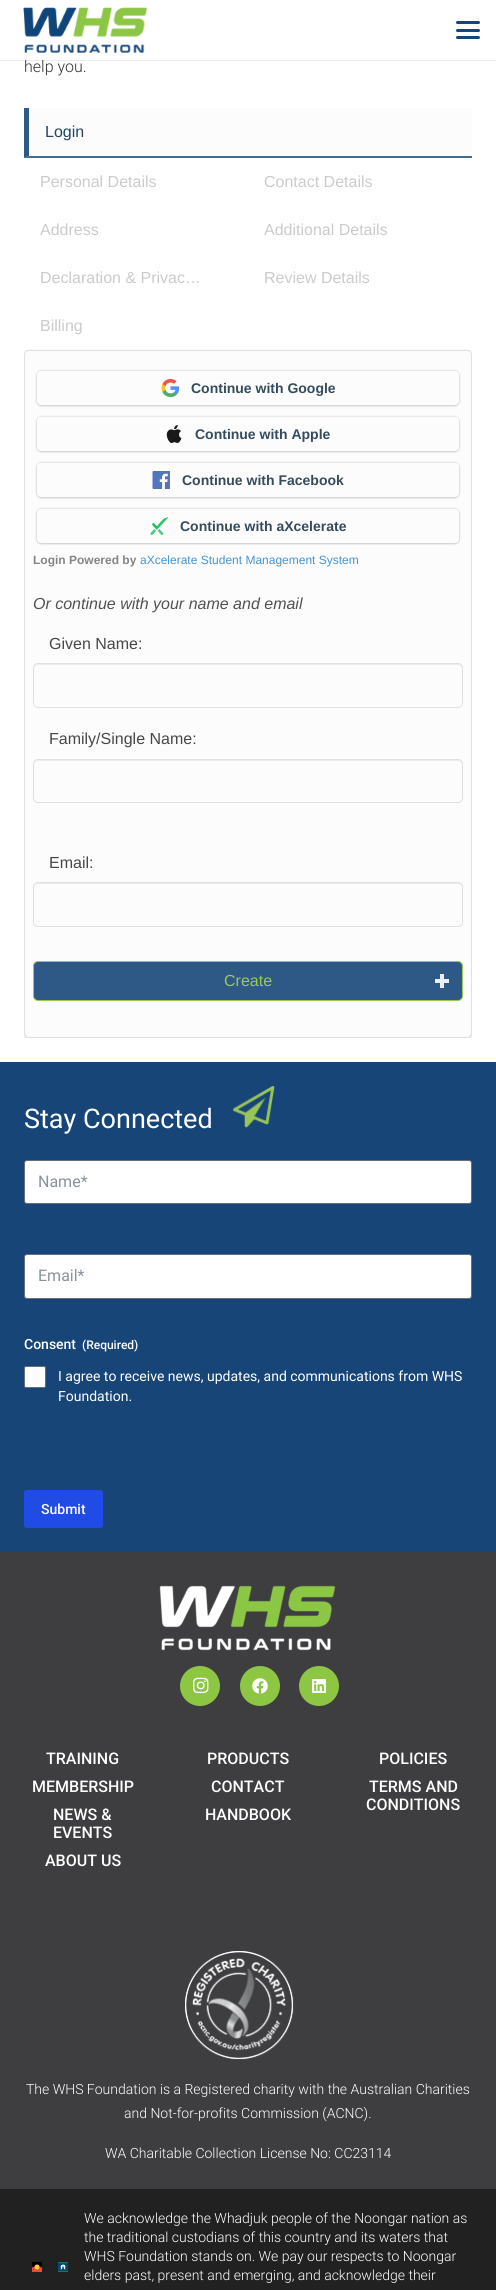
#include <cairo.h>
#include <math.h>
#include <stddef.h>

static cairo_t *ctx;

static void use_color(int r, int g, int b) {
    cairo_set_source_rgb(ctx, r / 255.0, g / 255.0, b / 255.0);
}

static void round_rect(double x, double y, double w, double h, double r) {
    cairo_new_sub_path(ctx);
    cairo_arc(ctx, x + w - r, y + h - r, r, 0, M_PI / 2);
    cairo_arc(ctx, x + r, y + h - r, r, M_PI / 2, M_PI);
    cairo_arc(ctx, x + r, y + r, r, M_PI, 1.5 * M_PI);
    cairo_arc(ctx, x + w - r, y + r, r, 1.5 * M_PI, 2 * M_PI);
    cairo_close_path(ctx);
}

static void shadow(double x, double y, double w, double h, double r, double blur, double alpha) {
    cairo_push_group_with_content(ctx, CAIRO_CONTENT_ALPHA);
    cairo_set_operator(ctx, CAIRO_OPERATOR_SOURCE);
    for (int i = 15; i >= -15 && fmin(w, h) + blur * i / 3 > 0; i -= 2) {
        double e = blur * i / 6;
        cairo_set_source_rgba(ctx, 0, 0, 0, alpha * erfc((i - 1) / 8.5) / 2);
        round_rect(x - e, y - e, w + 2 * e, h + 2 * e, fmax(0, fmin(r + e + blur * .6, fmin(w, h) / 2 + e)));
        cairo_fill(ctx);
    }
    cairo_pattern_t *soft = cairo_pop_group(ctx);
    cairo_mask(ctx, soft);
    cairo_pattern_destroy(soft);
}

static void picture(const char *path, double x, double y, double w, double h) {
    cairo_surface_t *image = cairo_image_surface_create_from_png(path);
    cairo_save(ctx);
    cairo_set_source_surface(ctx, image, x, y);
    cairo_rectangle(ctx, x, y, w, h);
    cairo_fill(ctx);
    cairo_restore(ctx);
    cairo_surface_destroy(image);
}

int main(void) {
    cairo_surface_t *surface = cairo_image_surface_create(CAIRO_FORMAT_RGB24, 496, 2290);
    ctx = cairo_create(surface);
    cairo_font_options_t *options = cairo_font_options_create();
    cairo_font_options_set_hint_metrics(options, CAIRO_HINT_METRICS_OFF);
    cairo_font_options_set_hint_style(options, CAIRO_HINT_STYLE_NONE);
    cairo_set_font_options(ctx, options);
    cairo_set_miter_limit(ctx, 4);
    use_color(255, 255, 255);
    cairo_paint(ctx);
    cairo_set_source_rgba(ctx, 0, 0, 0, 0.08);
    cairo_rectangle(ctx, 0, 60, 496, 1);
    cairo_fill(ctx);
    picture("img1.png", 23, 7, 125, 46);
    use_color(23, 69, 120);
    round_rect(456, 29, 24, 3, 1.5);
    cairo_fill(ctx);
    round_rect(456, 21, 24, 3, 1.5);
    cairo_fill(ctx);
    round_rect(456, 36, 24, 3, 1.5);
    cairo_fill(ctx);
    cairo_select_font_face(ctx, "Roboto Light", CAIRO_FONT_SLANT_NORMAL, CAIRO_FONT_WEIGHT_NORMAL);
    cairo_set_font_size(ctx, 16);
    use_color(51, 51, 51);
    cairo_move_to(ctx, 24, 72);
    cairo_show_text(ctx, "help you.");
    use_color(252, 252, 252);
    cairo_rectangle(ctx, 24, 108, 448, 50);
    cairo_fill(ctx);
    use_color(66, 107, 143);
    cairo_new_path(ctx);
    cairo_move_to(ctx, 472, 158);
    cairo_line_to(ctx, 24, 158);
    cairo_line_to(ctx, 29, 156);
    cairo_line_to(ctx, 472, 156);
    cairo_close_path(ctx);
    cairo_fill(ctx);
    use_color(46, 88, 134);
    cairo_new_path(ctx);
    cairo_move_to(ctx, 24, 158);
    cairo_line_to(ctx, 24, 108);
    cairo_line_to(ctx, 29, 108);
    cairo_line_to(ctx, 29, 156);
    cairo_close_path(ctx);
    cairo_fill(ctx);
    cairo_select_font_face(ctx, "Liberation Sans", CAIRO_FONT_SLANT_NORMAL, CAIRO_FONT_WEIGHT_NORMAL);
    use_color(36, 68, 96);
    cairo_move_to(ctx, 45, 137);
    cairo_show_text(ctx, "Login");
    use_color(203, 203, 203);
    cairo_move_to(ctx, 40, 187);
    cairo_show_text(ctx, "Personal Details");
    cairo_move_to(ctx, 264, 187);
    cairo_show_text(ctx, "Contact Details");
    cairo_move_to(ctx, 40, 235);
    cairo_show_text(ctx, "Address");
    cairo_move_to(ctx, 264, 235);
    cairo_show_text(ctx, "Additional Details");
    cairo_move_to(ctx, 40, 283);
    cairo_show_text(ctx, "Declaration & Privac…");
    cairo_move_to(ctx, 264, 283);
    cairo_show_text(ctx, "Review Details");
    cairo_move_to(ctx, 40, 331);
    cairo_show_text(ctx, "Billing");
    cairo_save(ctx);
    cairo_rectangle(ctx, 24, 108, 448, 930);
    cairo_clip(ctx);
    use_color(26, 26, 26);
    shadow(24, 351, 448, 688, 5, 1.5, 0.15);
    cairo_restore(ctx);
    use_color(252, 252, 252);
    round_rect(24.5, 350.5, 447, 687, 4.5);
    cairo_fill_preserve(ctx);
    use_color(224, 224, 224);
    cairo_set_line_width(ctx, 1);
    cairo_stroke(ctx);
    cairo_save(ctx);
    cairo_set_fill_rule(ctx, CAIRO_FILL_RULE_EVEN_ODD);
    cairo_new_path(ctx);
    cairo_move_to(ctx, 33, 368);
    cairo_line_to(ctx, 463, 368);
    cairo_line_to(ctx, 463, 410);
    cairo_line_to(ctx, 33, 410);
    cairo_close_path(ctx);
    cairo_move_to(ctx, 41, 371);
    cairo_line_to(ctx, 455, 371);
    cairo_curve_to(ctx, 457, 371, 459, 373, 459, 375);
    cairo_line_to(ctx, 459, 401);
    cairo_curve_to(ctx, 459, 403, 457, 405, 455, 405);
    cairo_line_to(ctx, 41, 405);
    cairo_curve_to(ctx, 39, 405, 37, 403, 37, 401);
    cairo_line_to(ctx, 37, 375);
    cairo_curve_to(ctx, 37, 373, 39, 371, 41, 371);
    cairo_close_path(ctx);
    cairo_clip(ctx);
    use_color(71, 86, 99);
    shadow(37, 372, 422, 34, 4, 1, 0.18);
    cairo_restore(ctx);
    cairo_save(ctx);
    cairo_set_fill_rule(ctx, CAIRO_FILL_RULE_EVEN_ODD);
    cairo_new_path(ctx);
    cairo_move_to(ctx, 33, 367);
    cairo_line_to(ctx, 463, 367);
    cairo_line_to(ctx, 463, 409);
    cairo_line_to(ctx, 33, 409);
    cairo_close_path(ctx);
    cairo_move_to(ctx, 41, 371);
    cairo_line_to(ctx, 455, 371);
    cairo_curve_to(ctx, 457, 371, 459, 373, 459, 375);
    cairo_line_to(ctx, 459, 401);
    cairo_curve_to(ctx, 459, 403, 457, 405, 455, 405);
    cairo_line_to(ctx, 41, 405);
    cairo_curve_to(ctx, 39, 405, 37, 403, 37, 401);
    cairo_line_to(ctx, 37, 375);
    cairo_curve_to(ctx, 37, 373, 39, 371, 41, 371);
    cairo_close_path(ctx);
    cairo_clip(ctx);
    use_color(71, 86, 99);
    shadow(37, 371, 422, 34, 4, 1, 0.33);
    cairo_restore(ctx);
    picture("img2.png", 161, 379, 18, 18);
    cairo_select_font_face(ctx, "Liberation Sans", CAIRO_FONT_SLANT_NORMAL, CAIRO_FONT_WEIGHT_BOLD);
    cairo_set_font_size(ctx, 14);
    use_color(54, 75, 93);
    cairo_move_to(ctx, 191, 393);
    cairo_show_text(ctx, "Continue with Google");
    cairo_save(ctx);
    cairo_set_fill_rule(ctx, CAIRO_FILL_RULE_EVEN_ODD);
    cairo_new_path(ctx);
    cairo_move_to(ctx, 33, 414);
    cairo_line_to(ctx, 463, 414);
    cairo_line_to(ctx, 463, 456);
    cairo_line_to(ctx, 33, 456);
    cairo_close_path(ctx);
    cairo_move_to(ctx, 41, 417);
    cairo_line_to(ctx, 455, 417);
    cairo_curve_to(ctx, 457, 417, 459, 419, 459, 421);
    cairo_line_to(ctx, 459, 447);
    cairo_curve_to(ctx, 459, 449, 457, 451, 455, 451);
    cairo_line_to(ctx, 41, 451);
    cairo_curve_to(ctx, 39, 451, 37, 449, 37, 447);
    cairo_line_to(ctx, 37, 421);
    cairo_curve_to(ctx, 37, 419, 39, 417, 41, 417);
    cairo_close_path(ctx);
    cairo_clip(ctx);
    use_color(71, 86, 99);
    shadow(37, 418, 422, 34, 4, 1, 0.18);
    cairo_restore(ctx);
    cairo_save(ctx);
    cairo_set_fill_rule(ctx, CAIRO_FILL_RULE_EVEN_ODD);
    cairo_new_path(ctx);
    cairo_move_to(ctx, 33, 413);
    cairo_line_to(ctx, 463, 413);
    cairo_line_to(ctx, 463, 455);
    cairo_line_to(ctx, 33, 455);
    cairo_close_path(ctx);
    cairo_move_to(ctx, 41, 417);
    cairo_line_to(ctx, 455, 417);
    cairo_curve_to(ctx, 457, 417, 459, 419, 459, 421);
    cairo_line_to(ctx, 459, 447);
    cairo_curve_to(ctx, 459, 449, 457, 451, 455, 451);
    cairo_line_to(ctx, 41, 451);
    cairo_curve_to(ctx, 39, 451, 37, 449, 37, 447);
    cairo_line_to(ctx, 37, 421);
    cairo_curve_to(ctx, 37, 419, 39, 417, 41, 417);
    cairo_close_path(ctx);
    cairo_clip(ctx);
    use_color(71, 86, 99);
    shadow(37, 417, 422, 34, 4, 1, 0.33);
    cairo_restore(ctx);
    picture("img3.png", 166, 425, 16, 18);
    cairo_move_to(ctx, 195, 439);
    cairo_show_text(ctx, "Continue with Apple");
    cairo_save(ctx);
    cairo_set_fill_rule(ctx, CAIRO_FILL_RULE_EVEN_ODD);
    cairo_new_path(ctx);
    cairo_move_to(ctx, 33, 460);
    cairo_line_to(ctx, 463, 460);
    cairo_line_to(ctx, 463, 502);
    cairo_line_to(ctx, 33, 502);
    cairo_close_path(ctx);
    cairo_move_to(ctx, 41, 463);
    cairo_line_to(ctx, 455, 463);
    cairo_curve_to(ctx, 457, 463, 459, 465, 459, 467);
    cairo_line_to(ctx, 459, 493);
    cairo_curve_to(ctx, 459, 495, 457, 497, 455, 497);
    cairo_line_to(ctx, 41, 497);
    cairo_curve_to(ctx, 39, 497, 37, 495, 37, 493);
    cairo_line_to(ctx, 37, 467);
    cairo_curve_to(ctx, 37, 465, 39, 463, 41, 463);
    cairo_close_path(ctx);
    cairo_clip(ctx);
    use_color(71, 86, 99);
    shadow(37, 464, 422, 34, 4, 1, 0.18);
    cairo_restore(ctx);
    cairo_save(ctx);
    cairo_set_fill_rule(ctx, CAIRO_FILL_RULE_EVEN_ODD);
    cairo_new_path(ctx);
    cairo_move_to(ctx, 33, 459);
    cairo_line_to(ctx, 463, 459);
    cairo_line_to(ctx, 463, 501);
    cairo_line_to(ctx, 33, 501);
    cairo_close_path(ctx);
    cairo_move_to(ctx, 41, 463);
    cairo_line_to(ctx, 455, 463);
    cairo_curve_to(ctx, 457, 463, 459, 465, 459, 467);
    cairo_line_to(ctx, 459, 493);
    cairo_curve_to(ctx, 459, 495, 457, 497, 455, 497);
    cairo_line_to(ctx, 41, 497);
    cairo_curve_to(ctx, 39, 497, 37, 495, 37, 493);
    cairo_line_to(ctx, 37, 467);
    cairo_curve_to(ctx, 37, 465, 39, 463, 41, 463);
    cairo_close_path(ctx);
    cairo_clip(ctx);
    use_color(71, 86, 99);
    shadow(37, 463, 422, 34, 4, 1, 0.33);
    cairo_restore(ctx);
    picture("img4.png", 152, 471, 18, 18);
    cairo_move_to(ctx, 182, 485);
    cairo_show_text(ctx, "Continue with Facebook");
    cairo_save(ctx);
    cairo_set_fill_rule(ctx, CAIRO_FILL_RULE_EVEN_ODD);
    cairo_new_path(ctx);
    cairo_move_to(ctx, 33, 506);
    cairo_line_to(ctx, 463, 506);
    cairo_line_to(ctx, 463, 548);
    cairo_line_to(ctx, 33, 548);
    cairo_close_path(ctx);
    cairo_move_to(ctx, 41, 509);
    cairo_line_to(ctx, 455, 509);
    cairo_curve_to(ctx, 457, 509, 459, 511, 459, 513);
    cairo_line_to(ctx, 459, 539);
    cairo_curve_to(ctx, 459, 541, 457, 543, 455, 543);
    cairo_line_to(ctx, 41, 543);
    cairo_curve_to(ctx, 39, 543, 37, 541, 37, 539);
    cairo_line_to(ctx, 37, 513);
    cairo_curve_to(ctx, 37, 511, 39, 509, 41, 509);
    cairo_close_path(ctx);
    cairo_clip(ctx);
    use_color(71, 86, 99);
    shadow(37, 510, 422, 34, 4, 1, 0.18);
    cairo_restore(ctx);
    cairo_save(ctx);
    cairo_set_fill_rule(ctx, CAIRO_FILL_RULE_EVEN_ODD);
    cairo_new_path(ctx);
    cairo_move_to(ctx, 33, 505);
    cairo_line_to(ctx, 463, 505);
    cairo_line_to(ctx, 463, 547);
    cairo_line_to(ctx, 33, 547);
    cairo_close_path(ctx);
    cairo_move_to(ctx, 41, 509);
    cairo_line_to(ctx, 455, 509);
    cairo_curve_to(ctx, 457, 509, 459, 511, 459, 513);
    cairo_line_to(ctx, 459, 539);
    cairo_curve_to(ctx, 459, 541, 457, 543, 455, 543);
    cairo_line_to(ctx, 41, 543);
    cairo_curve_to(ctx, 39, 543, 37, 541, 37, 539);
    cairo_line_to(ctx, 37, 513);
    cairo_curve_to(ctx, 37, 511, 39, 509, 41, 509);
    cairo_close_path(ctx);
    cairo_clip(ctx);
    use_color(71, 86, 99);
    shadow(37, 509, 422, 34, 4, 1, 0.33);
    cairo_restore(ctx);
    picture("img5.png", 150, 517, 18, 18);
    cairo_move_to(ctx, 180, 531);
    cairo_show_text(ctx, "Continue with aXcelerate");
    cairo_set_font_size(ctx, 12);
    use_color(133, 133, 133);
    cairo_move_to(ctx, 33, 564);
    cairo_show_text(ctx, "Login Powered by");
    cairo_select_font_face(ctx, "Liberation Sans", CAIRO_FONT_SLANT_NORMAL, CAIRO_FONT_WEIGHT_NORMAL);
    use_color(71, 148, 209);
    cairo_move_to(ctx, 140, 564);
    cairo_show_text(ctx, "aXcelerate Student Management System");
    cairo_select_font_face(ctx, "Liberation Sans", CAIRO_FONT_SLANT_ITALIC, CAIRO_FONT_WEIGHT_NORMAL);
    cairo_set_font_size(ctx, 16);
    use_color(81, 81, 81);
    cairo_move_to(ctx, 33, 609);
    cairo_show_text(ctx, "Or continue with your name and email");
    cairo_select_font_face(ctx, "Liberation Sans", CAIRO_FONT_SLANT_NORMAL, CAIRO_FONT_WEIGHT_NORMAL);
    use_color(71, 71, 71);
    cairo_move_to(ctx, 49, 649);
    cairo_show_text(ctx, "Given Name:");
    use_color(234, 234, 234);
    cairo_new_path(ctx);
    cairo_move_to(ctx, 38, 665);
    cairo_line_to(ctx, 458, 665);
    cairo_curve_to(ctx, 460, 665, 462, 667, 462, 669);
    cairo_curve_to(ctx, 462, 666, 461, 664, 458, 664);
    cairo_line_to(ctx, 38, 664);
    cairo_curve_to(ctx, 37, 664, 35, 665, 35, 666);
    cairo_line_to(ctx, 34, 669);
    cairo_curve_to(ctx, 34, 667, 36, 665, 38, 665);
    cairo_close_path(ctx);
    cairo_fill(ctx);
    round_rect(33.5, 663.5, 429, 44, 4.5);
    use_color(224, 224, 224);
    cairo_stroke(ctx);
    use_color(71, 71, 71);
    cairo_move_to(ctx, 49, 744);
    cairo_show_text(ctx, "Family/Single Name:");
    use_color(234, 234, 234);
    cairo_new_path(ctx);
    cairo_move_to(ctx, 38, 761);
    cairo_line_to(ctx, 458, 761);
    cairo_curve_to(ctx, 460, 761, 462, 763, 462, 765);
    cairo_curve_to(ctx, 462, 762, 461, 760, 458, 760);
    cairo_line_to(ctx, 38, 760);
    cairo_curve_to(ctx, 37, 760, 35, 761, 35, 762);
    cairo_line_to(ctx, 34, 765);
    cairo_curve_to(ctx, 34, 763, 36, 761, 38, 761);
    cairo_close_path(ctx);
    cairo_fill(ctx);
    round_rect(33.5, 759.5, 429, 43, 4.5);
    use_color(224, 224, 224);
    cairo_stroke(ctx);
    use_color(71, 71, 71);
    cairo_move_to(ctx, 49, 868);
    cairo_show_text(ctx, "Email:");
    use_color(234, 234, 234);
    cairo_new_path(ctx);
    cairo_move_to(ctx, 38, 884);
    cairo_line_to(ctx, 458, 884);
    cairo_curve_to(ctx, 460, 884, 462, 886, 462, 888);
    cairo_curve_to(ctx, 462, 885, 461, 883, 458, 883);
    cairo_line_to(ctx, 38, 883);
    cairo_curve_to(ctx, 37, 883, 35, 884, 35, 885);
    cairo_line_to(ctx, 34, 888);
    cairo_curve_to(ctx, 34, 886, 36, 884, 38, 884);
    cairo_close_path(ctx);
    cairo_fill(ctx);
    round_rect(33.5, 882.5, 429, 44, 4.5);
    use_color(224, 224, 224);
    cairo_stroke(ctx);
    use_color(46, 88, 134);
    round_rect(33.5, 961.5, 429, 39, 4.5);
    cairo_fill_preserve(ctx);
    use_color(152, 204, 84);
    cairo_stroke(ctx);
    cairo_move_to(ctx, 224, 986);
    cairo_show_text(ctx, "Create");
    picture("img6.png", 435, 974, 14, 14);
    use_color(23, 69, 120);
    cairo_rectangle(ctx, 0, 1062, 496, 490);
    cairo_fill(ctx);
    cairo_select_font_face(ctx, "Roboto", CAIRO_FONT_SLANT_NORMAL, CAIRO_FONT_WEIGHT_NORMAL);
    cairo_set_font_size(ctx, 27);
    use_color(255, 255, 255);
    cairo_move_to(ctx, 24, 1128);
    cairo_show_text(ctx, "Stay Connected");
    picture("img7.png", 233, 1086, 42, 42);
    round_rect(24.5, 1160.5, 447, 43, 2.5);
    cairo_fill_preserve(ctx);
    use_color(104, 110, 119);
    cairo_stroke(ctx);
    cairo_set_font_size(ctx, 16);
    use_color(136, 145, 155);
    cairo_move_to(ctx, 38, 1187);
    cairo_show_text(ctx, "Name*");
    use_color(255, 255, 255);
    round_rect(24.5, 1254.5, 447, 44, 2.5);
    cairo_fill_preserve(ctx);
    use_color(104, 110, 119);
    cairo_stroke(ctx);
    use_color(136, 145, 155);
    cairo_move_to(ctx, 38, 1281);
    cairo_show_text(ctx, "Email*");
    cairo_select_font_face(ctx, "Roboto Medium", CAIRO_FONT_SLANT_NORMAL, CAIRO_FONT_WEIGHT_NORMAL);
    cairo_set_font_size(ctx, 14);
    use_color(255, 255, 255);
    cairo_move_to(ctx, 24, 1349);
    cairo_show_text(ctx, "Consent");
    cairo_set_font_size(ctx, 12);
    cairo_move_to(ctx, 82, 1349);
    cairo_show_text(ctx, "(Required)");
    round_rect(24.5, 1366.5, 21, 21, 1.5);
    cairo_fill_preserve(ctx);
    use_color(104, 110, 119);
    cairo_stroke(ctx);
    cairo_select_font_face(ctx, "Roboto", CAIRO_FONT_SLANT_NORMAL, CAIRO_FONT_WEIGHT_NORMAL);
    cairo_set_font_size(ctx, 14);
    use_color(255, 255, 255);
    cairo_move_to(ctx, 58, 1381);
    cairo_show_text(ctx, "I agree to receive news, updates, and communications from WHS");
    cairo_move_to(ctx, 58, 1401);
    cairo_show_text(ctx, "Foundation.");
    use_color(32, 76, 229);
    round_rect(24, 1490, 79, 38, 3);
    cairo_fill(ctx);
    cairo_select_font_face(ctx, "Roboto Medium", CAIRO_FONT_SLANT_NORMAL, CAIRO_FONT_WEIGHT_NORMAL);
    use_color(255, 255, 255);
    cairo_move_to(ctx, 41, 1514);
    cairo_show_text(ctx, "Submit");
    use_color(62, 62, 64);
    cairo_rectangle(ctx, 0, 1552, 496, 637);
    cairo_fill(ctx);
    picture("img8.png", 159, 1585, 177, 66);
    use_color(140, 198, 67);
    cairo_arc(ctx, 200, 1686, 20, 0, 2 * M_PI);
    cairo_fill(ctx);
    picture("img9.png", 193, 1677, 16, 17);
    cairo_arc(ctx, 260, 1686, 20, 0, 2 * M_PI);
    cairo_fill(ctx);
    picture("img10.png", 252, 1678, 16, 16);
    cairo_arc(ctx, 319, 1686, 20, 0, 2 * M_PI);
    cairo_fill(ctx);
    picture("img11.png", 312, 1679, 14, 14);
    cairo_set_font_size(ctx, 16);
    use_color(255, 255, 255);
    cairo_move_to(ctx, 46, 1764);
    cairo_show_text(ctx, "TRAINING");
    cairo_move_to(ctx, 32, 1792);
    cairo_show_text(ctx, "MEMBERSHIP");
    cairo_move_to(ctx, 53, 1820);
    cairo_show_text(ctx, "NEWS &");
    cairo_move_to(ctx, 53, 1838);
    cairo_show_text(ctx, "EVENTS");
    cairo_move_to(ctx, 45, 1866);
    cairo_show_text(ctx, "ABOUT US");
    cairo_move_to(ctx, 207, 1764);
    cairo_show_text(ctx, "PRODUCTS");
    cairo_move_to(ctx, 211, 1792);
    cairo_show_text(ctx, "CONTACT");
    cairo_move_to(ctx, 205, 1820);
    cairo_show_text(ctx, "HANDBOOK");
    cairo_move_to(ctx, 379, 1764);
    cairo_show_text(ctx, "POLICIES");
    cairo_move_to(ctx, 369, 1792);
    cairo_show_text(ctx, "TERMS AND");
    cairo_move_to(ctx, 366, 1810);
    cairo_show_text(ctx, "CONDITIONS");
    picture("img12.png", 185, 1951, 109, 109);
    cairo_select_font_face(ctx, "Roboto Light", CAIRO_FONT_SLANT_NORMAL, CAIRO_FONT_WEIGHT_NORMAL);
    cairo_set_font_size(ctx, 14);
    cairo_move_to(ctx, 26, 2094);
    cairo_show_text(ctx, "The WHS Foundation is a Registered charity with the Australian Charities");
    cairo_move_to(ctx, 124, 2118);
    cairo_show_text(ctx, "and Not-for-profits Commission (ACNC).");
    cairo_move_to(ctx, 105, 2158);
    cairo_show_text(ctx, "WA Charitable Collection License No: CC23114");
    use_color(33, 33, 33);
    cairo_rectangle(ctx, 0, 2189, 496, 101);
    cairo_fill(ctx);
    picture("img13.png", 32, 2262, 10, 10);
    picture("img14.png", 58, 2262, 10, 10);
    use_color(255, 255, 255);
    cairo_move_to(ctx, 84, 2223);
    cairo_show_text(ctx, "We acknowledge the Whadjuk people of the Noongar nation as");
    cairo_move_to(ctx, 84, 2242);
    cairo_show_text(ctx, "the traditional custodians of this country and its waters that");
    cairo_move_to(ctx, 84, 2261);
    cairo_show_text(ctx, "WHS Foundation stands on. We pay our respects to Noongar");
    cairo_move_to(ctx, 84, 2280);
    cairo_show_text(ctx, "elders past, present and emerging, and acknowledge their");
    cairo_surface_write_to_png(surface, "result.png");
    cairo_font_options_destroy(options);
    cairo_destroy(ctx);
    cairo_surface_destroy(surface);
    return 0;
}
